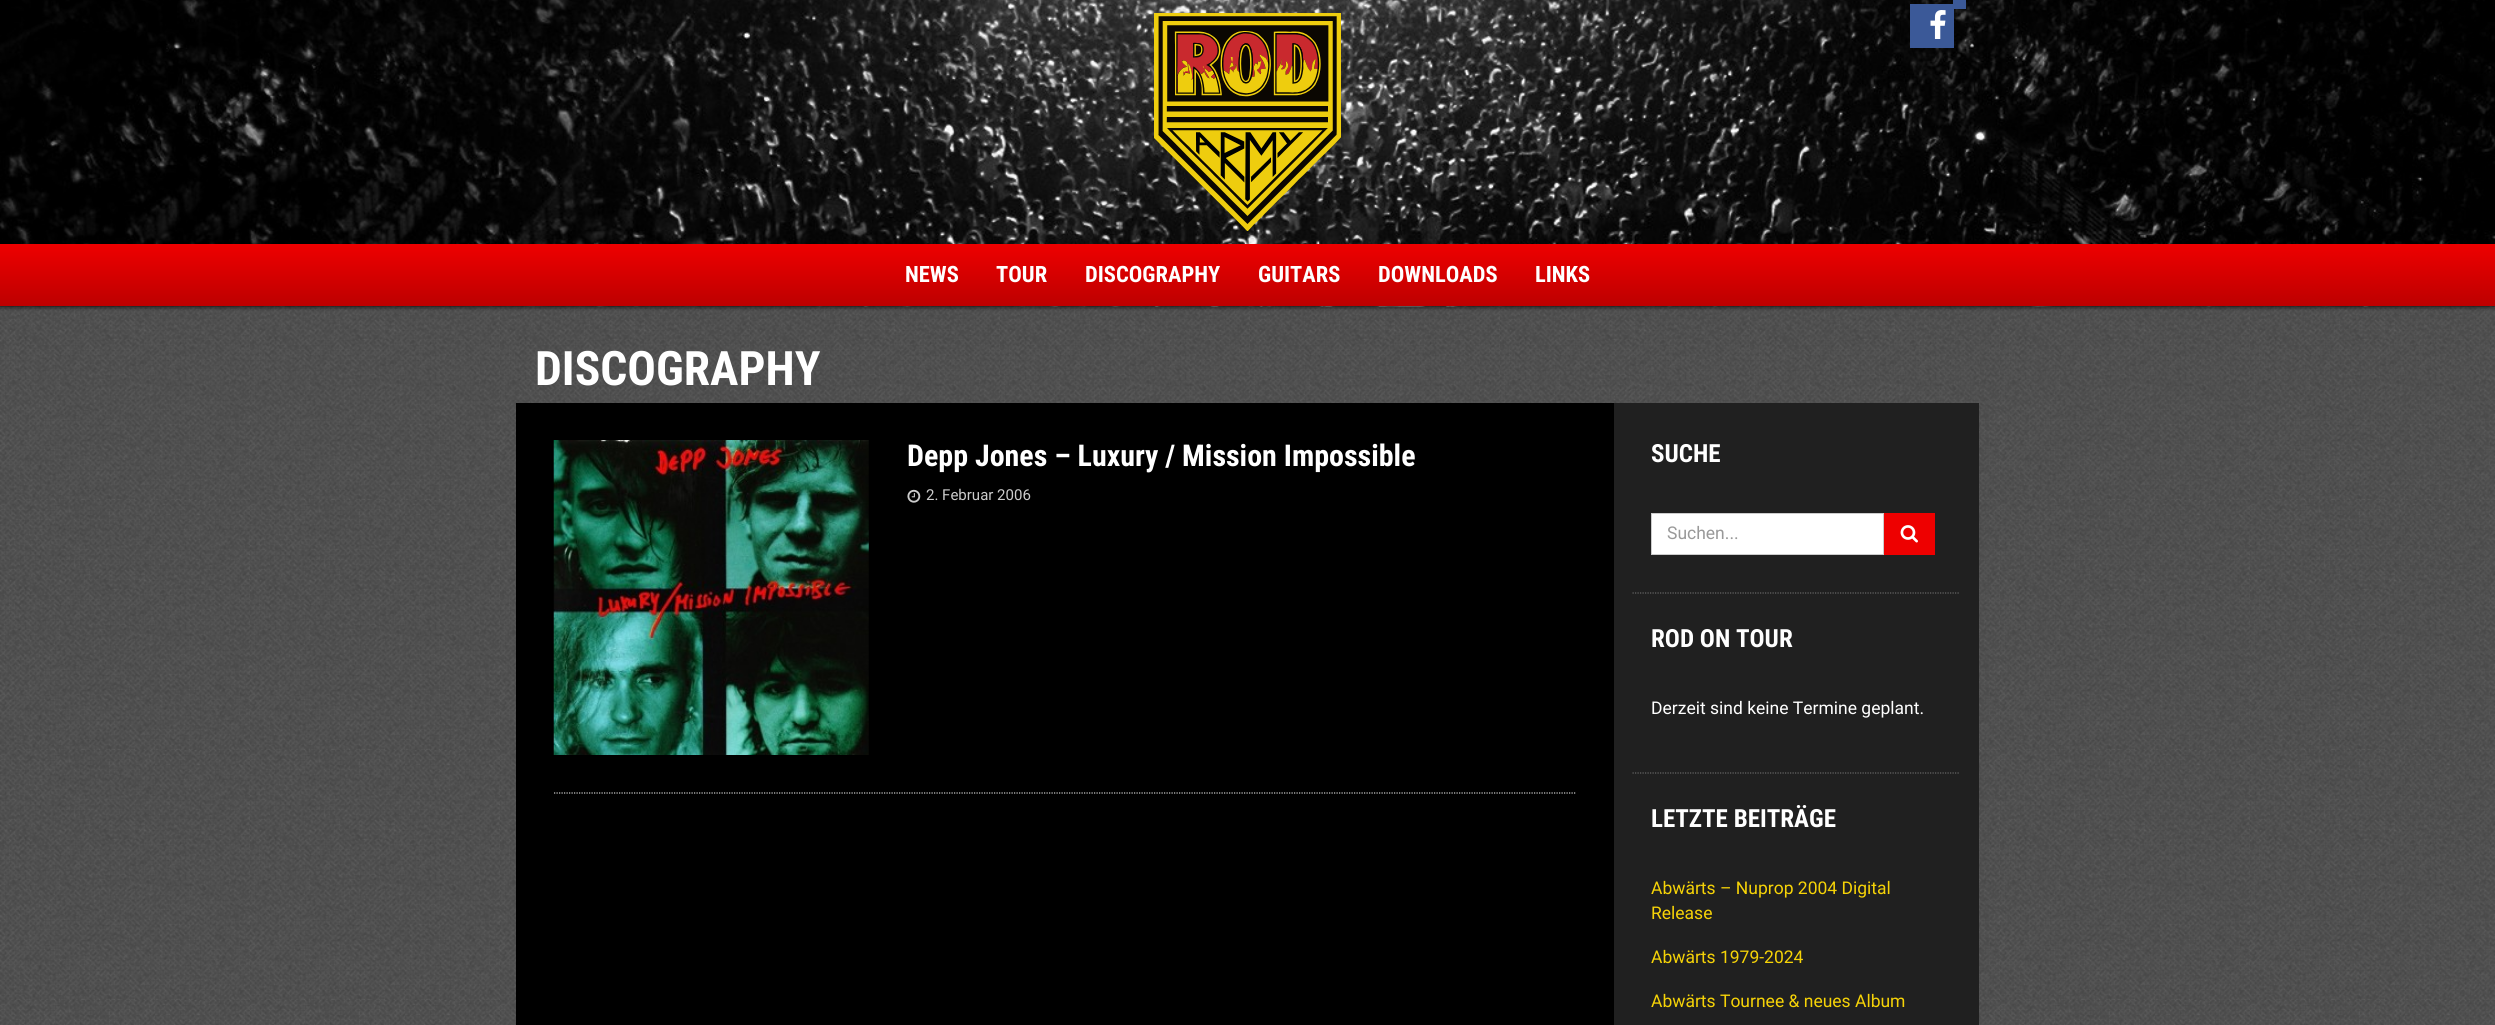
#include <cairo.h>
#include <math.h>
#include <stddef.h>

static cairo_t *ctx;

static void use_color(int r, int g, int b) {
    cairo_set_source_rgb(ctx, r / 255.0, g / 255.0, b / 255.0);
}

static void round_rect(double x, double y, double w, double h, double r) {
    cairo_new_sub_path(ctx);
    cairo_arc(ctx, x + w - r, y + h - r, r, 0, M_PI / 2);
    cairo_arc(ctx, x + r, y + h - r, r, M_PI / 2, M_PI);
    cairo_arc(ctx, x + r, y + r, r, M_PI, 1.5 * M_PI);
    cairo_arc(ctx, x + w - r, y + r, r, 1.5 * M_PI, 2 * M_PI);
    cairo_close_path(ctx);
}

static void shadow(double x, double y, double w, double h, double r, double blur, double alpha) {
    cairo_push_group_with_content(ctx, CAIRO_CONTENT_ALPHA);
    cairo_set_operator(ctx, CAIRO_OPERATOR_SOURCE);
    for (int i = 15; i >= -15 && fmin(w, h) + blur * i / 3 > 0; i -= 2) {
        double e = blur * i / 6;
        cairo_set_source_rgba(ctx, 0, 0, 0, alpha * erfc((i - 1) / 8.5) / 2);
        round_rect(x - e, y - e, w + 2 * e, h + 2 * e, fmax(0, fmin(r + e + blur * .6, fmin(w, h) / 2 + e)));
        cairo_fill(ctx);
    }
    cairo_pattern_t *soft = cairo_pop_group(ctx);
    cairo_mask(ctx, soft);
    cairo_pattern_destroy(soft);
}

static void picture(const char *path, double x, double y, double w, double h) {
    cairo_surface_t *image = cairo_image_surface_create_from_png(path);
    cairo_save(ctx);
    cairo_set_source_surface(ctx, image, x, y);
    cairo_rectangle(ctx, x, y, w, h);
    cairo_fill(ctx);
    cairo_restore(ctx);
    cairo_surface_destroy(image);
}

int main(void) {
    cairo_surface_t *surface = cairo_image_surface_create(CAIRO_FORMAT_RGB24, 2495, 1025);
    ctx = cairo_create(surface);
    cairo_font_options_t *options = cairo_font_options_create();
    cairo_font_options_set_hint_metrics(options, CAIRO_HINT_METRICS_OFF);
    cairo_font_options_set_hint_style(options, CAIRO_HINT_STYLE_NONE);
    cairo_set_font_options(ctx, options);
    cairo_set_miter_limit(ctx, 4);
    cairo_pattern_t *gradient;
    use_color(255, 255, 255);
    cairo_paint(ctx);
    picture("img1.png", 0, 306, 2495, 719);
    picture("img2.png", 0, 0, 2495, 307);
    picture("img3.png", 1154, 13, 187, 218);
    use_color(59, 89, 152);
    cairo_rectangle(ctx, 1910, 4, 44, 44);
    cairo_fill(ctx);
    cairo_rectangle(ctx, 1953, 0, 13, 9);
    cairo_fill(ctx);
    picture("img4.png", 1930, 10, 16, 29);
    use_color(0, 0, 0);
    shadow(0, 246, 2495, 63, 0, 1, 0.3);
    gradient = cairo_pattern_create_linear(1248, 244, 1248, 306);
    cairo_pattern_add_color_stop_rgba(gradient, 0, 0.933, 0, 0, 1);
    cairo_pattern_add_color_stop_rgba(gradient, 1, 0.741, 0, 0, 1);
    cairo_set_source(ctx, gradient);
    cairo_pattern_destroy(gradient);
    cairo_rectangle(ctx, 0, 244, 2495, 62);
    cairo_fill(ctx);
    cairo_select_font_face(ctx, "Roboto Condensed", CAIRO_FONT_SLANT_NORMAL, CAIRO_FONT_WEIGHT_BOLD);
    cairo_set_font_size(ctx, 22.5);
    use_color(255, 255, 255);
    cairo_move_to(ctx, 905, 282);
    cairo_show_text(ctx, "NEWS");
    cairo_move_to(ctx, 996, 282);
    cairo_show_text(ctx, "TOUR");
    cairo_move_to(ctx, 1085, 282);
    cairo_show_text(ctx, "DISCOGRAPHY");
    cairo_move_to(ctx, 1258, 282);
    cairo_show_text(ctx, "GUITARS");
    cairo_move_to(ctx, 1378, 282);
    cairo_show_text(ctx, "DOWNLOADS");
    cairo_move_to(ctx, 1535, 282);
    cairo_show_text(ctx, "LINKS");
    cairo_set_font_size(ctx, 47.5);
    cairo_move_to(ctx, 535, 385);
    cairo_show_text(ctx, "DISCOGRAPHY");
    use_color(0, 0, 0);
    cairo_rectangle(ctx, 516, 403, 1098, 622);
    cairo_fill(ctx);
    cairo_new_path(ctx);
    cairo_move_to(ctx, 554, 793);
    cairo_line_to(ctx, 1576, 793);
    use_color(204, 204, 204);
    cairo_set_line_width(ctx, 1.2);
    cairo_set_dash(ctx, (double[]){1.25, 1.25}, 2, 0);
    cairo_stroke(ctx);
    picture("img5.png", 553, 440, 316, 315);
    cairo_set_font_size(ctx, 30);
    use_color(255, 255, 255);
    cairo_move_to(ctx, 907, 466);
    cairo_show_text(ctx, "Depp Jones – Luxury / Mission Impossible");
    picture("img6.png", 907, 489, 14, 14);
    cairo_select_font_face(ctx, "Roboto", CAIRO_FONT_SLANT_NORMAL, CAIRO_FONT_WEIGHT_NORMAL);
    cairo_set_font_size(ctx, 15);
    use_color(204, 204, 204);
    cairo_move_to(ctx, 926, 500);
    cairo_show_text(ctx, "2. Februar 2006");
    use_color(32, 32, 32);
    cairo_rectangle(ctx, 1614, 403, 365, 622);
    cairo_fill(ctx);
    cairo_new_path(ctx);
    cairo_move_to(ctx, 1632.5, 593);
    cairo_line_to(ctx, 1960, 593);
    use_color(102, 102, 102);
    cairo_stroke(ctx);
    cairo_select_font_face(ctx, "Roboto Condensed", CAIRO_FONT_SLANT_NORMAL, CAIRO_FONT_WEIGHT_BOLD);
    cairo_set_font_size(ctx, 25);
    use_color(255, 255, 255);
    cairo_move_to(ctx, 1651, 462);
    cairo_show_text(ctx, "SUCHE");
    cairo_rectangle(ctx, 1651.5, 513.5, 232, 41);
    cairo_fill_preserve(ctx);
    use_color(204, 204, 204);
    cairo_set_line_width(ctx, 1);
    cairo_set_dash(ctx, NULL, 0, 0);
    cairo_stroke(ctx);
    cairo_select_font_face(ctx, "Roboto", CAIRO_FONT_SLANT_NORMAL, CAIRO_FONT_WEIGHT_NORMAL);
    cairo_set_font_size(ctx, 17.5);
    use_color(153, 153, 153);
    cairo_move_to(ctx, 1667, 539);
    cairo_show_text(ctx, "Suchen...");
    use_color(238, 0, 0);
    cairo_rectangle(ctx, 1884, 513, 51, 42);
    cairo_fill(ctx);
    picture("img7.png", 1900, 525, 18, 18);
    cairo_new_path(ctx);
    cairo_move_to(ctx, 1632.5, 773);
    cairo_line_to(ctx, 1960, 773);
    use_color(102, 102, 102);
    cairo_set_line_width(ctx, 1.2);
    cairo_set_dash(ctx, (double[]){1.25, 1.25}, 2, 0);
    cairo_stroke(ctx);
    cairo_select_font_face(ctx, "Roboto Condensed", CAIRO_FONT_SLANT_NORMAL, CAIRO_FONT_WEIGHT_BOLD);
    cairo_set_font_size(ctx, 25);
    use_color(255, 255, 255);
    cairo_move_to(ctx, 1651, 647);
    cairo_show_text(ctx, "ROD ON TOUR");
    cairo_select_font_face(ctx, "Roboto", CAIRO_FONT_SLANT_NORMAL, CAIRO_FONT_WEIGHT_NORMAL);
    cairo_set_font_size(ctx, 17.5);
    cairo_move_to(ctx, 1651, 714);
    cairo_show_text(ctx, "Derzeit sind keine Termine geplant.");
    cairo_select_font_face(ctx, "Roboto Condensed", CAIRO_FONT_SLANT_NORMAL, CAIRO_FONT_WEIGHT_BOLD);
    cairo_set_font_size(ctx, 25);
    cairo_move_to(ctx, 1651, 827);
    cairo_show_text(ctx, "LETZTE BEITRÄGE");
    cairo_select_font_face(ctx, "Roboto", CAIRO_FONT_SLANT_NORMAL, CAIRO_FONT_WEIGHT_NORMAL);
    cairo_set_font_size(ctx, 17.5);
    use_color(246, 211, 7);
    cairo_move_to(ctx, 1651, 894);
    cairo_show_text(ctx, "Abwärts – Nuprop 2004 Digital");
    cairo_move_to(ctx, 1651, 919);
    cairo_show_text(ctx, "Release");
    cairo_move_to(ctx, 1651, 963);
    cairo_show_text(ctx, "Abwärts 1979-2024");
    cairo_move_to(ctx, 1651, 1007);
    cairo_show_text(ctx, "Abwärts Tournee & neues Album");
    cairo_surface_write_to_png(surface, "result.png");
    cairo_font_options_destroy(options);
    cairo_destroy(ctx);
    cairo_surface_destroy(surface);
    return 0;
}
